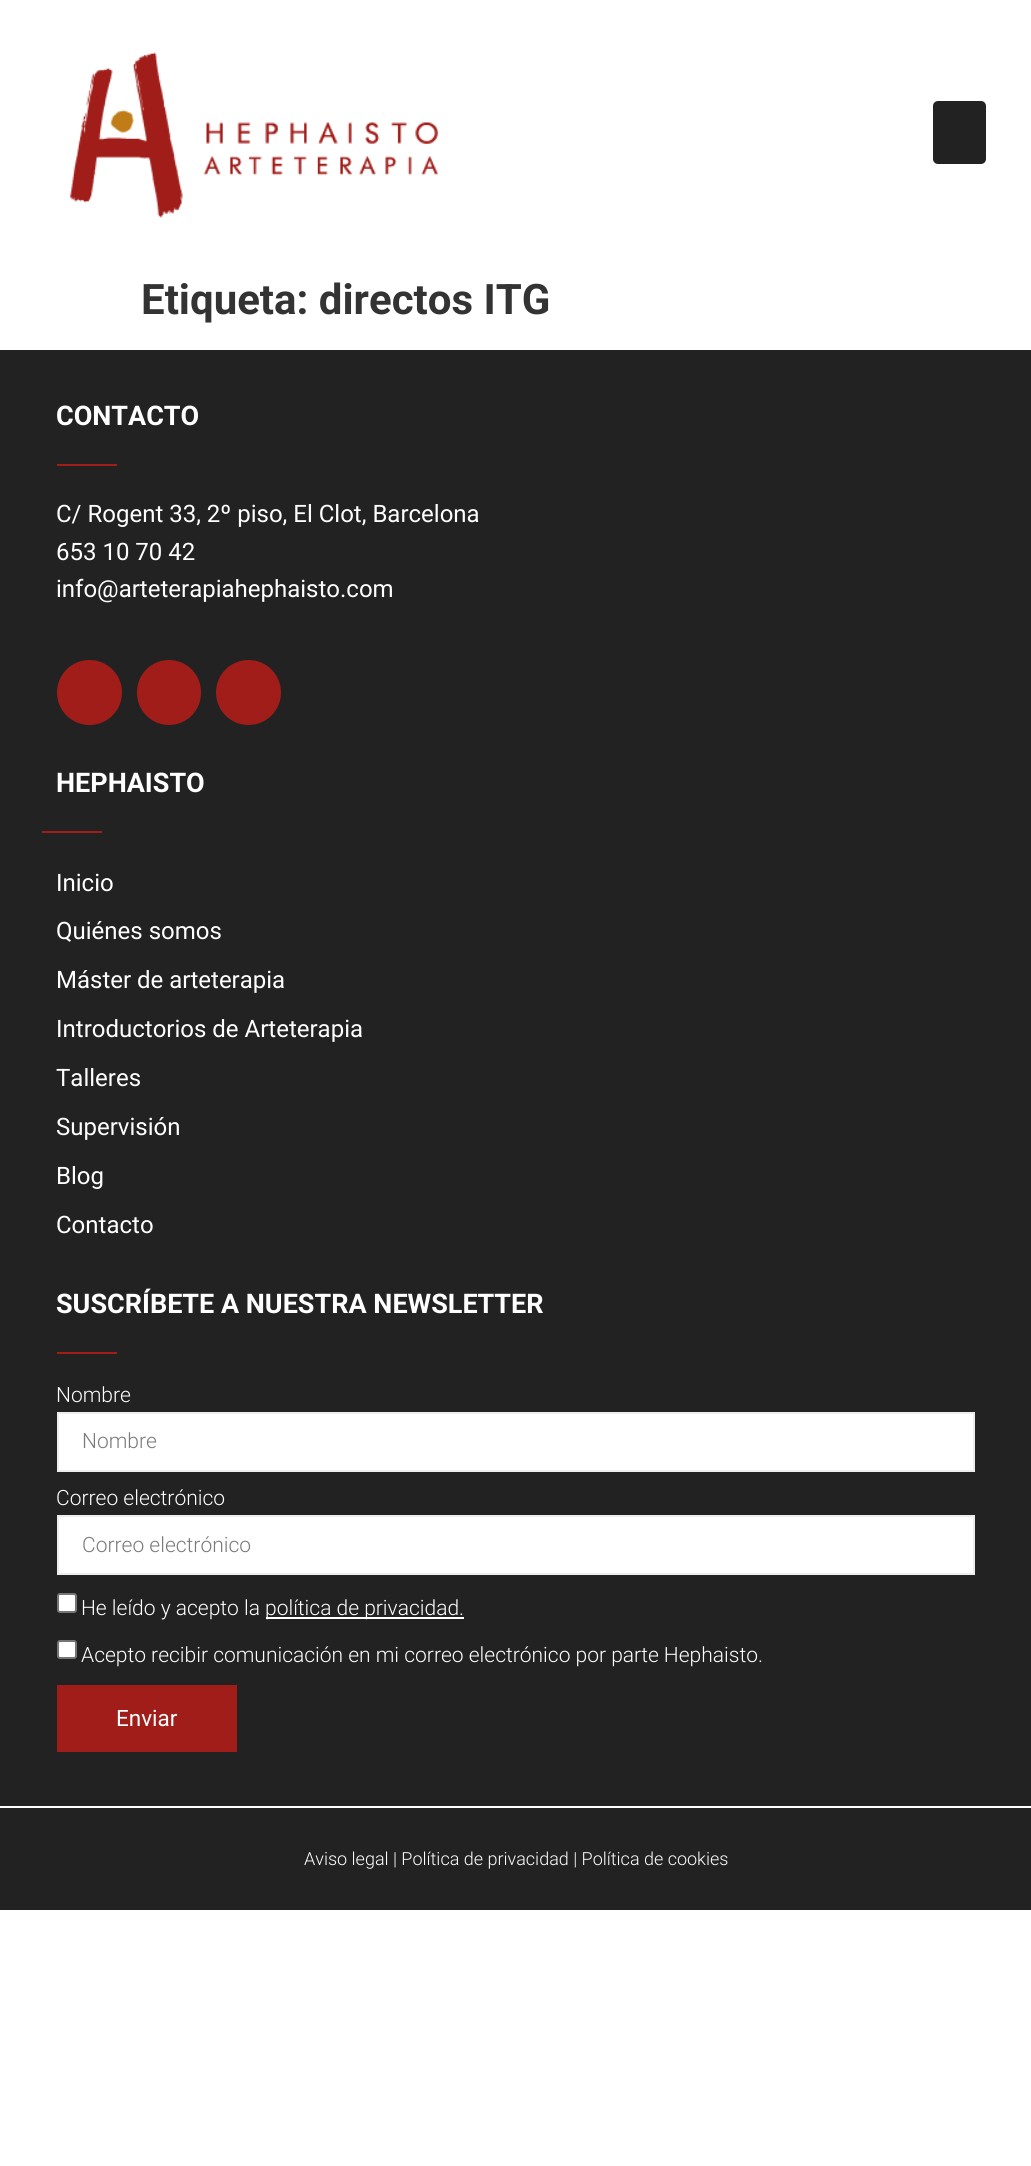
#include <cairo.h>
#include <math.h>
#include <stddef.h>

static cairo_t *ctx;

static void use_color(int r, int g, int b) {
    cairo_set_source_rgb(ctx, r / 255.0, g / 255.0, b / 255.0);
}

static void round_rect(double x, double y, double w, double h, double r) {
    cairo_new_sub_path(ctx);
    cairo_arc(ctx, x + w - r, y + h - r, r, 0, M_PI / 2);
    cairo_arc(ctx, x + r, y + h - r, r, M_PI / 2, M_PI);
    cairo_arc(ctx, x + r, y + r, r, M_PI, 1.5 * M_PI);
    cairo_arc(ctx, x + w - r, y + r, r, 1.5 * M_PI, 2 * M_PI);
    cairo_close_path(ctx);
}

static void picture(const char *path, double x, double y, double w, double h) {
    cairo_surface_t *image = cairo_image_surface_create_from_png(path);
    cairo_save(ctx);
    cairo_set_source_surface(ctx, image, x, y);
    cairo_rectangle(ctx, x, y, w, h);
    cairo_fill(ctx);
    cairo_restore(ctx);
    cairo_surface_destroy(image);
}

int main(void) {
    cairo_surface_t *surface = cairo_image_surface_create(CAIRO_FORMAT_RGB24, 1031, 2166);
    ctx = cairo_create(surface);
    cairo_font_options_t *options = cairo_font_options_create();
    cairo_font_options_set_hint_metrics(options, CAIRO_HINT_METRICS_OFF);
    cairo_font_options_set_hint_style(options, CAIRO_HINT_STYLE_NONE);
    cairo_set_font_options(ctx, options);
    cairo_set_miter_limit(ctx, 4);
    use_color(255, 255, 255);
    cairo_paint(ctx);
    picture("img1.png", 70, 52, 369, 166);
    use_color(34, 34, 34);
    round_rect(933, 101, 53, 63, 5);
    cairo_fill(ctx);
    cairo_select_font_face(ctx, "Roboto", CAIRO_FONT_SLANT_NORMAL, CAIRO_FONT_WEIGHT_BOLD);
    cairo_set_font_size(ctx, 42);
    use_color(51, 51, 51);
    cairo_move_to(ctx, 141, 314);
    cairo_show_text(ctx, "Etiqueta: directos ITG");
    use_color(34, 34, 34);
    cairo_rectangle(ctx, 0, 350, 1031, 1456);
    cairo_fill(ctx);
    cairo_set_font_size(ctx, 27);
    use_color(255, 255, 255);
    cairo_move_to(ctx, 56, 425);
    cairo_show_text(ctx, "CONTACTO");
    use_color(161, 29, 25);
    cairo_rectangle(ctx, 57, 464, 60, 2);
    cairo_fill(ctx);
    cairo_select_font_face(ctx, "Roboto", CAIRO_FONT_SLANT_NORMAL, CAIRO_FONT_WEIGHT_NORMAL);
    cairo_set_font_size(ctx, 24);
    use_color(255, 255, 255);
    cairo_move_to(ctx, 56, 522);
    cairo_show_text(ctx, "C/ Rogent 33, 2º piso, El Clot, Barcelona");
    cairo_move_to(ctx, 56, 560);
    cairo_show_text(ctx, "653 10 70 42");
    cairo_move_to(ctx, 56, 597);
    cairo_show_text(ctx, "info@arteterapiahephaisto.com");
    use_color(161, 29, 25);
    cairo_new_path(ctx);
    cairo_arc(ctx, 89.5, 692.5, 32.5, 0, 2 * M_PI);
    cairo_fill(ctx);
    round_rect(137, 660, 64, 65, 32);
    cairo_fill(ctx);
    cairo_arc(ctx, 248.5, 692.5, 32.5, 0, 2 * M_PI);
    cairo_fill(ctx);
    cairo_select_font_face(ctx, "Roboto", CAIRO_FONT_SLANT_NORMAL, CAIRO_FONT_WEIGHT_BOLD);
    cairo_set_font_size(ctx, 27);
    use_color(255, 255, 255);
    cairo_move_to(ctx, 56, 792);
    cairo_show_text(ctx, "HEPHAISTO");
    use_color(161, 29, 25);
    cairo_rectangle(ctx, 42, 831, 60, 2);
    cairo_fill(ctx);
    cairo_select_font_face(ctx, "Roboto", CAIRO_FONT_SLANT_NORMAL, CAIRO_FONT_WEIGHT_NORMAL);
    cairo_set_font_size(ctx, 24);
    use_color(255, 255, 255);
    cairo_move_to(ctx, 56, 891);
    cairo_show_text(ctx, "Inicio");
    cairo_move_to(ctx, 56, 939);
    cairo_show_text(ctx, "Quiénes somos");
    cairo_move_to(ctx, 56, 988);
    cairo_show_text(ctx, "Máster de arteterapia");
    cairo_move_to(ctx, 56, 1037);
    cairo_show_text(ctx, "Introductorios de Arteterapia");
    cairo_move_to(ctx, 56, 1086);
    cairo_show_text(ctx, "Talleres");
    cairo_move_to(ctx, 56, 1135);
    cairo_show_text(ctx, "Supervisión");
    cairo_move_to(ctx, 56, 1184);
    cairo_show_text(ctx, "Blog");
    cairo_move_to(ctx, 56, 1233);
    cairo_show_text(ctx, "Contacto");
    cairo_select_font_face(ctx, "Roboto", CAIRO_FONT_SLANT_NORMAL, CAIRO_FONT_WEIGHT_BOLD);
    cairo_set_font_size(ctx, 27);
    cairo_move_to(ctx, 56, 1313);
    cairo_show_text(ctx, "SUSCRÍBETE A NUESTRA NEWSLETTER");
    use_color(161, 29, 25);
    cairo_rectangle(ctx, 57, 1352, 60, 2);
    cairo_fill(ctx);
    cairo_select_font_face(ctx, "Roboto Light", CAIRO_FONT_SLANT_NORMAL, CAIRO_FONT_WEIGHT_NORMAL);
    cairo_set_font_size(ctx, 21);
    use_color(255, 255, 255);
    cairo_move_to(ctx, 56, 1402);
    cairo_show_text(ctx, "Nombre");
    cairo_rectangle(ctx, 58, 1413, 916, 58);
    cairo_fill_preserve(ctx);
    use_color(237, 237, 237);
    cairo_stroke(ctx);
    use_color(121, 122, 124);
    cairo_move_to(ctx, 82, 1448);
    cairo_show_text(ctx, "Nombre");
    use_color(255, 255, 255);
    cairo_move_to(ctx, 56, 1505);
    cairo_show_text(ctx, "Correo electrónico");
    cairo_rectangle(ctx, 58, 1516, 916, 58);
    cairo_fill_preserve(ctx);
    use_color(237, 237, 237);
    cairo_stroke(ctx);
    use_color(121, 122, 124);
    cairo_move_to(ctx, 82, 1552);
    cairo_show_text(ctx, "Correo electrónico");
    use_color(255, 255, 255);
    round_rect(58, 1594, 18, 18, 2);
    cairo_fill_preserve(ctx);
    use_color(118, 118, 118);
    cairo_stroke(ctx);
    use_color(255, 255, 255);
    cairo_move_to(ctx, 81, 1615);
    cairo_show_text(ctx, "He leído y acepto la");
    cairo_rectangle(ctx, 266, 1617, 198, 2);
    cairo_fill(ctx);
    cairo_move_to(ctx, 265, 1615);
    cairo_show_text(ctx, "política de privacidad.");
    round_rect(58, 1641, 18, 17, 2);
    cairo_fill_preserve(ctx);
    use_color(118, 118, 118);
    cairo_stroke(ctx);
    use_color(255, 255, 255);
    cairo_move_to(ctx, 81, 1662);
    cairo_show_text(ctx, "Acepto recibir comunicación en mi correo electrónico por parte Hephaisto.");
    use_color(161, 29, 25);
    cairo_rectangle(ctx, 57, 1685, 180, 67);
    cairo_fill(ctx);
    cairo_select_font_face(ctx, "Roboto", CAIRO_FONT_SLANT_NORMAL, CAIRO_FONT_WEIGHT_NORMAL);
    cairo_set_font_size(ctx, 22.5);
    use_color(255, 255, 255);
    cairo_move_to(ctx, 116, 1726);
    cairo_show_text(ctx, "Enviar");
    use_color(34, 34, 34);
    cairo_rectangle(ctx, 0, 1808, 1031, 102);
    cairo_fill(ctx);
    cairo_select_font_face(ctx, "Roboto Light", CAIRO_FONT_SLANT_NORMAL, CAIRO_FONT_WEIGHT_NORMAL);
    cairo_set_font_size(ctx, 18);
    use_color(255, 255, 255);
    cairo_move_to(ctx, 304, 1865);
    cairo_show_text(ctx, "Aviso legal | Política de privacidad | Política de cookies");
    cairo_surface_write_to_png(surface, "result.png");
    cairo_font_options_destroy(options);
    cairo_destroy(ctx);
    cairo_surface_destroy(surface);
    return 0;
}
